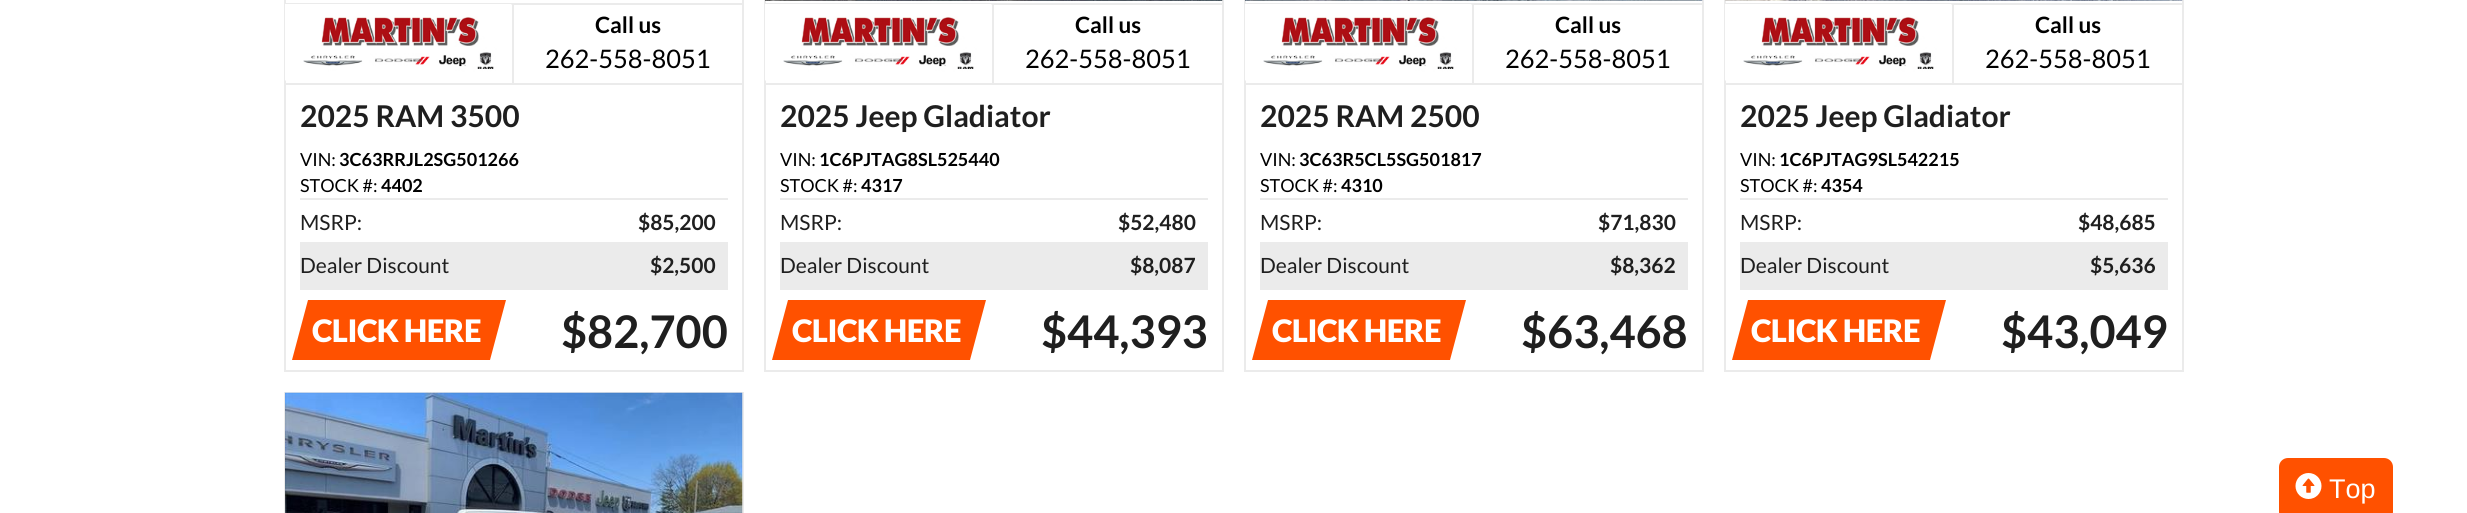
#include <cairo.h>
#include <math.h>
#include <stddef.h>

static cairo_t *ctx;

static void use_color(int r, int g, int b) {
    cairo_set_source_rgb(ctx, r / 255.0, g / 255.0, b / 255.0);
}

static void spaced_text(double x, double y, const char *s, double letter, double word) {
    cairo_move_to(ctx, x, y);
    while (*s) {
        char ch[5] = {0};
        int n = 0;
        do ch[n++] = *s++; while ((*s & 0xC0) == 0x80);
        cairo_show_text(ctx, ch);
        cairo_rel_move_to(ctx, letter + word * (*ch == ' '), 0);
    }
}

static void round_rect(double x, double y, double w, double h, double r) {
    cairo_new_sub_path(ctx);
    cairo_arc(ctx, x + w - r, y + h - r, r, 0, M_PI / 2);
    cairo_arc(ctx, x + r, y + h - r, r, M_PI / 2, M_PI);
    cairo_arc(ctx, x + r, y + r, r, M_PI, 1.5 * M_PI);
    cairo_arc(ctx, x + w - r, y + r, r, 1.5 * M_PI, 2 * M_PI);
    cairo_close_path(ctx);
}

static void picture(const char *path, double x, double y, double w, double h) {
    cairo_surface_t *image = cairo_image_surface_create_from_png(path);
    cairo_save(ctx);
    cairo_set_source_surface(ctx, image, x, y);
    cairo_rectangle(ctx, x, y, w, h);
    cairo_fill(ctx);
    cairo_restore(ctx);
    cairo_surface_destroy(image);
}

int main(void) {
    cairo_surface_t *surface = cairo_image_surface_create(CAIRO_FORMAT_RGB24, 2467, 513);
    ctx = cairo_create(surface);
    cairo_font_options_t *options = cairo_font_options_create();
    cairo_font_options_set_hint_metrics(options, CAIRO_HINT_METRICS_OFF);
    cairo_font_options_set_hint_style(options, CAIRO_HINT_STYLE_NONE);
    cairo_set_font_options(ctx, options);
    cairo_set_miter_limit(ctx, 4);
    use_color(255, 255, 255);
    cairo_paint(ctx);
    cairo_rectangle(ctx, 285, -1, 458, 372);
    use_color(235, 235, 235);
    cairo_stroke(ctx);
    cairo_rectangle(ctx, 285, 3, 228, 2);
    cairo_fill(ctx);
    cairo_rectangle(ctx, 512, 3, 2, 81);
    cairo_fill(ctx);
    cairo_rectangle(ctx, 285, 83, 458, 2);
    cairo_fill(ctx);
    picture("img1.png", 285, 4, 227, 77);
    cairo_rectangle(ctx, 513, 3, 230, 2);
    cairo_fill(ctx);
    cairo_select_font_face(ctx, "Lato", CAIRO_FONT_SLANT_NORMAL, CAIRO_FONT_WEIGHT_BOLD);
    cairo_set_font_size(ctx, 22.5);
    use_color(0, 0, 0);
    cairo_move_to(ctx, 595, 33);
    cairo_show_text(ctx, "Call us");
    cairo_select_font_face(ctx, "Lato", CAIRO_FONT_SLANT_NORMAL, CAIRO_FONT_WEIGHT_NORMAL);
    cairo_set_font_size(ctx, 25.5);
    cairo_move_to(ctx, 545, 68);
    cairo_show_text(ctx, "262-558-8051");
    cairo_select_font_face(ctx, "Lato", CAIRO_FONT_SLANT_NORMAL, CAIRO_FONT_WEIGHT_BOLD);
    cairo_set_font_size(ctx, 30);
    use_color(31, 31, 31);
    cairo_move_to(ctx, 300, 127);
    cairo_show_text(ctx, "2025 RAM 3500");
    cairo_select_font_face(ctx, "Lato", CAIRO_FONT_SLANT_NORMAL, CAIRO_FONT_WEIGHT_NORMAL);
    cairo_set_font_size(ctx, 18);
    use_color(0, 0, 0);
    cairo_move_to(ctx, 300, 166);
    cairo_show_text(ctx, "VIN:");
    cairo_select_font_face(ctx, "Lato", CAIRO_FONT_SLANT_NORMAL, CAIRO_FONT_WEIGHT_BOLD);
    cairo_move_to(ctx, 339, 166);
    cairo_show_text(ctx, "3C63RRJL2SG501266");
    cairo_select_font_face(ctx, "Lato", CAIRO_FONT_SLANT_NORMAL, CAIRO_FONT_WEIGHT_NORMAL);
    cairo_move_to(ctx, 300, 192);
    cairo_show_text(ctx, "STOCK #:");
    cairo_select_font_face(ctx, "Lato", CAIRO_FONT_SLANT_NORMAL, CAIRO_FONT_WEIGHT_BOLD);
    cairo_move_to(ctx, 381, 192);
    cairo_show_text(ctx, "4402");
    use_color(235, 235, 235);
    cairo_rectangle(ctx, 300, 198, 428, 2);
    cairo_fill(ctx);
    cairo_rectangle(ctx, 300, 242, 428, 48);
    cairo_fill(ctx);
    cairo_select_font_face(ctx, "Lato", CAIRO_FONT_SLANT_NORMAL, CAIRO_FONT_WEIGHT_NORMAL);
    cairo_set_font_size(ctx, 21);
    use_color(31, 31, 31);
    cairo_move_to(ctx, 300, 230);
    cairo_show_text(ctx, "MSRP:");
    cairo_select_font_face(ctx, "Lato", CAIRO_FONT_SLANT_NORMAL, CAIRO_FONT_WEIGHT_BOLD);
    cairo_move_to(ctx, 638, 230);
    cairo_show_text(ctx, "$85,200");
    cairo_select_font_face(ctx, "Lato", CAIRO_FONT_SLANT_NORMAL, CAIRO_FONT_WEIGHT_NORMAL);
    cairo_move_to(ctx, 300, 273);
    cairo_show_text(ctx, "Dealer Discount");
    cairo_select_font_face(ctx, "Lato", CAIRO_FONT_SLANT_NORMAL, CAIRO_FONT_WEIGHT_BOLD);
    cairo_move_to(ctx, 650, 273);
    cairo_show_text(ctx, "$2,500");
    use_color(255, 81, 0);
    cairo_new_path(ctx);
    cairo_move_to(ctx, 308, 300);
    cairo_line_to(ctx, 506, 300);
    cairo_line_to(ctx, 490, 360);
    cairo_line_to(ctx, 292, 360);
    cairo_close_path(ctx);
    cairo_fill(ctx);
    cairo_select_font_face(ctx, "Lato Black", CAIRO_FONT_SLANT_NORMAL, CAIRO_FONT_WEIGHT_NORMAL);
    cairo_set_font_size(ctx, 31);
    use_color(255, 255, 255);
    spaced_text(312, 342, "CLICK HERE", -0.5, 0);
    cairo_select_font_face(ctx, "Lato", CAIRO_FONT_SLANT_NORMAL, CAIRO_FONT_WEIGHT_BOLD);
    cairo_set_font_size(ctx, 45);
    use_color(31, 31, 31);
    cairo_move_to(ctx, 561, 348);
    cairo_show_text(ctx, "$82,700");
    cairo_rectangle(ctx, 765, -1, 458, 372);
    use_color(235, 235, 235);
    cairo_stroke(ctx);
    picture("img2.png", 765, 0, 458, 1);
    cairo_rectangle(ctx, 765, 3, 228, 2);
    cairo_fill(ctx);
    cairo_rectangle(ctx, 992, 3, 2, 81);
    cairo_fill(ctx);
    cairo_rectangle(ctx, 765, 83, 458, 2);
    cairo_fill(ctx);
    picture("img3.png", 765, 4, 227, 77);
    cairo_rectangle(ctx, 993, 3, 230, 2);
    cairo_fill(ctx);
    cairo_set_font_size(ctx, 22.5);
    use_color(0, 0, 0);
    cairo_move_to(ctx, 1075, 33);
    cairo_show_text(ctx, "Call us");
    cairo_select_font_face(ctx, "Lato", CAIRO_FONT_SLANT_NORMAL, CAIRO_FONT_WEIGHT_NORMAL);
    cairo_set_font_size(ctx, 25.5);
    cairo_move_to(ctx, 1025, 68);
    cairo_show_text(ctx, "262-558-8051");
    cairo_select_font_face(ctx, "Lato", CAIRO_FONT_SLANT_NORMAL, CAIRO_FONT_WEIGHT_BOLD);
    cairo_set_font_size(ctx, 30);
    use_color(31, 31, 31);
    cairo_move_to(ctx, 780, 127);
    cairo_show_text(ctx, "2025 Jeep Gladiator");
    cairo_select_font_face(ctx, "Lato", CAIRO_FONT_SLANT_NORMAL, CAIRO_FONT_WEIGHT_NORMAL);
    cairo_set_font_size(ctx, 18);
    use_color(0, 0, 0);
    cairo_move_to(ctx, 780, 166);
    cairo_show_text(ctx, "VIN:");
    cairo_select_font_face(ctx, "Lato", CAIRO_FONT_SLANT_NORMAL, CAIRO_FONT_WEIGHT_BOLD);
    cairo_move_to(ctx, 819, 166);
    cairo_show_text(ctx, "1C6PJTAG8SL525440");
    cairo_select_font_face(ctx, "Lato", CAIRO_FONT_SLANT_NORMAL, CAIRO_FONT_WEIGHT_NORMAL);
    cairo_move_to(ctx, 780, 192);
    cairo_show_text(ctx, "STOCK #:");
    cairo_select_font_face(ctx, "Lato", CAIRO_FONT_SLANT_NORMAL, CAIRO_FONT_WEIGHT_BOLD);
    cairo_move_to(ctx, 861, 192);
    cairo_show_text(ctx, "4317");
    use_color(235, 235, 235);
    cairo_rectangle(ctx, 780, 198, 428, 2);
    cairo_fill(ctx);
    cairo_rectangle(ctx, 780, 242, 428, 48);
    cairo_fill(ctx);
    cairo_select_font_face(ctx, "Lato", CAIRO_FONT_SLANT_NORMAL, CAIRO_FONT_WEIGHT_NORMAL);
    cairo_set_font_size(ctx, 21);
    use_color(31, 31, 31);
    cairo_move_to(ctx, 780, 230);
    cairo_show_text(ctx, "MSRP:");
    cairo_select_font_face(ctx, "Lato", CAIRO_FONT_SLANT_NORMAL, CAIRO_FONT_WEIGHT_BOLD);
    cairo_move_to(ctx, 1118, 230);
    cairo_show_text(ctx, "$52,480");
    cairo_select_font_face(ctx, "Lato", CAIRO_FONT_SLANT_NORMAL, CAIRO_FONT_WEIGHT_NORMAL);
    cairo_move_to(ctx, 780, 273);
    cairo_show_text(ctx, "Dealer Discount");
    cairo_select_font_face(ctx, "Lato", CAIRO_FONT_SLANT_NORMAL, CAIRO_FONT_WEIGHT_BOLD);
    cairo_move_to(ctx, 1130, 273);
    cairo_show_text(ctx, "$8,087");
    use_color(255, 81, 0);
    cairo_new_path(ctx);
    cairo_move_to(ctx, 788, 300);
    cairo_line_to(ctx, 986, 300);
    cairo_line_to(ctx, 970, 360);
    cairo_line_to(ctx, 772, 360);
    cairo_close_path(ctx);
    cairo_fill(ctx);
    cairo_select_font_face(ctx, "Lato Black", CAIRO_FONT_SLANT_NORMAL, CAIRO_FONT_WEIGHT_NORMAL);
    cairo_set_font_size(ctx, 31);
    use_color(255, 255, 255);
    spaced_text(792, 342, "CLICK HERE", -0.5, 0);
    cairo_select_font_face(ctx, "Lato", CAIRO_FONT_SLANT_NORMAL, CAIRO_FONT_WEIGHT_BOLD);
    cairo_set_font_size(ctx, 45);
    use_color(31, 31, 31);
    cairo_move_to(ctx, 1041, 348);
    cairo_show_text(ctx, "$44,393");
    cairo_rectangle(ctx, 1245, -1, 458, 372);
    use_color(235, 235, 235);
    cairo_stroke(ctx);
    picture("img4.png", 1245, 0, 458, 1);
    cairo_rectangle(ctx, 1245, 3, 228, 2);
    cairo_fill(ctx);
    cairo_rectangle(ctx, 1472, 3, 2, 81);
    cairo_fill(ctx);
    cairo_rectangle(ctx, 1245, 83, 458, 2);
    cairo_fill(ctx);
    picture("img3.png", 1245, 4, 227, 77);
    cairo_rectangle(ctx, 1473, 3, 230, 2);
    cairo_fill(ctx);
    cairo_set_font_size(ctx, 22.5);
    use_color(0, 0, 0);
    cairo_move_to(ctx, 1555, 33);
    cairo_show_text(ctx, "Call us");
    cairo_select_font_face(ctx, "Lato", CAIRO_FONT_SLANT_NORMAL, CAIRO_FONT_WEIGHT_NORMAL);
    cairo_set_font_size(ctx, 25.5);
    cairo_move_to(ctx, 1505, 68);
    cairo_show_text(ctx, "262-558-8051");
    cairo_select_font_face(ctx, "Lato", CAIRO_FONT_SLANT_NORMAL, CAIRO_FONT_WEIGHT_BOLD);
    cairo_set_font_size(ctx, 30);
    use_color(31, 31, 31);
    cairo_move_to(ctx, 1260, 127);
    cairo_show_text(ctx, "2025 RAM 2500");
    cairo_select_font_face(ctx, "Lato", CAIRO_FONT_SLANT_NORMAL, CAIRO_FONT_WEIGHT_NORMAL);
    cairo_set_font_size(ctx, 18);
    use_color(0, 0, 0);
    cairo_move_to(ctx, 1260, 166);
    cairo_show_text(ctx, "VIN:");
    cairo_select_font_face(ctx, "Lato", CAIRO_FONT_SLANT_NORMAL, CAIRO_FONT_WEIGHT_BOLD);
    cairo_move_to(ctx, 1299, 166);
    cairo_show_text(ctx, "3C63R5CL5SG501817");
    cairo_select_font_face(ctx, "Lato", CAIRO_FONT_SLANT_NORMAL, CAIRO_FONT_WEIGHT_NORMAL);
    cairo_move_to(ctx, 1260, 192);
    cairo_show_text(ctx, "STOCK #:");
    cairo_select_font_face(ctx, "Lato", CAIRO_FONT_SLANT_NORMAL, CAIRO_FONT_WEIGHT_BOLD);
    cairo_move_to(ctx, 1341, 192);
    cairo_show_text(ctx, "4310");
    use_color(235, 235, 235);
    cairo_rectangle(ctx, 1260, 198, 428, 2);
    cairo_fill(ctx);
    cairo_rectangle(ctx, 1260, 242, 428, 48);
    cairo_fill(ctx);
    cairo_select_font_face(ctx, "Lato", CAIRO_FONT_SLANT_NORMAL, CAIRO_FONT_WEIGHT_NORMAL);
    cairo_set_font_size(ctx, 21);
    use_color(31, 31, 31);
    cairo_move_to(ctx, 1260, 230);
    cairo_show_text(ctx, "MSRP:");
    cairo_select_font_face(ctx, "Lato", CAIRO_FONT_SLANT_NORMAL, CAIRO_FONT_WEIGHT_BOLD);
    cairo_move_to(ctx, 1598, 230);
    cairo_show_text(ctx, "$71,830");
    cairo_select_font_face(ctx, "Lato", CAIRO_FONT_SLANT_NORMAL, CAIRO_FONT_WEIGHT_NORMAL);
    cairo_move_to(ctx, 1260, 273);
    cairo_show_text(ctx, "Dealer Discount");
    cairo_select_font_face(ctx, "Lato", CAIRO_FONT_SLANT_NORMAL, CAIRO_FONT_WEIGHT_BOLD);
    cairo_move_to(ctx, 1610, 273);
    cairo_show_text(ctx, "$8,362");
    use_color(255, 81, 0);
    cairo_new_path(ctx);
    cairo_move_to(ctx, 1268, 300);
    cairo_line_to(ctx, 1466, 300);
    cairo_line_to(ctx, 1450, 360);
    cairo_line_to(ctx, 1252, 360);
    cairo_close_path(ctx);
    cairo_fill(ctx);
    cairo_select_font_face(ctx, "Lato Black", CAIRO_FONT_SLANT_NORMAL, CAIRO_FONT_WEIGHT_NORMAL);
    cairo_set_font_size(ctx, 31);
    use_color(255, 255, 255);
    spaced_text(1272, 342, "CLICK HERE", -0.5, 0);
    cairo_select_font_face(ctx, "Lato", CAIRO_FONT_SLANT_NORMAL, CAIRO_FONT_WEIGHT_BOLD);
    cairo_set_font_size(ctx, 45);
    use_color(31, 31, 31);
    cairo_move_to(ctx, 1521, 348);
    cairo_show_text(ctx, "$63,468");
    cairo_rectangle(ctx, 1725, -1, 458, 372);
    use_color(235, 235, 235);
    cairo_stroke(ctx);
    picture("img5.png", 1725, 0, 458, 1);
    cairo_rectangle(ctx, 1725, 3, 228, 2);
    cairo_fill(ctx);
    cairo_rectangle(ctx, 1952, 3, 2, 81);
    cairo_fill(ctx);
    cairo_rectangle(ctx, 1725, 83, 458, 2);
    cairo_fill(ctx);
    picture("img1.png", 1725, 4, 227, 77);
    cairo_rectangle(ctx, 1953, 3, 230, 2);
    cairo_fill(ctx);
    cairo_set_font_size(ctx, 22.5);
    use_color(0, 0, 0);
    cairo_move_to(ctx, 2035, 33);
    cairo_show_text(ctx, "Call us");
    cairo_select_font_face(ctx, "Lato", CAIRO_FONT_SLANT_NORMAL, CAIRO_FONT_WEIGHT_NORMAL);
    cairo_set_font_size(ctx, 25.5);
    cairo_move_to(ctx, 1985, 68);
    cairo_show_text(ctx, "262-558-8051");
    cairo_select_font_face(ctx, "Lato", CAIRO_FONT_SLANT_NORMAL, CAIRO_FONT_WEIGHT_BOLD);
    cairo_set_font_size(ctx, 30);
    use_color(31, 31, 31);
    cairo_move_to(ctx, 1740, 127);
    cairo_show_text(ctx, "2025 Jeep Gladiator");
    cairo_select_font_face(ctx, "Lato", CAIRO_FONT_SLANT_NORMAL, CAIRO_FONT_WEIGHT_NORMAL);
    cairo_set_font_size(ctx, 18);
    use_color(0, 0, 0);
    cairo_move_to(ctx, 1740, 166);
    cairo_show_text(ctx, "VIN:");
    cairo_select_font_face(ctx, "Lato", CAIRO_FONT_SLANT_NORMAL, CAIRO_FONT_WEIGHT_BOLD);
    cairo_move_to(ctx, 1779, 166);
    cairo_show_text(ctx, "1C6PJTAG9SL542215");
    cairo_select_font_face(ctx, "Lato", CAIRO_FONT_SLANT_NORMAL, CAIRO_FONT_WEIGHT_NORMAL);
    cairo_move_to(ctx, 1740, 192);
    cairo_show_text(ctx, "STOCK #:");
    cairo_select_font_face(ctx, "Lato", CAIRO_FONT_SLANT_NORMAL, CAIRO_FONT_WEIGHT_BOLD);
    cairo_move_to(ctx, 1821, 192);
    cairo_show_text(ctx, "4354");
    use_color(235, 235, 235);
    cairo_rectangle(ctx, 1740, 198, 428, 2);
    cairo_fill(ctx);
    cairo_rectangle(ctx, 1740, 242, 428, 48);
    cairo_fill(ctx);
    cairo_select_font_face(ctx, "Lato", CAIRO_FONT_SLANT_NORMAL, CAIRO_FONT_WEIGHT_NORMAL);
    cairo_set_font_size(ctx, 21);
    use_color(31, 31, 31);
    cairo_move_to(ctx, 1740, 230);
    cairo_show_text(ctx, "MSRP:");
    cairo_select_font_face(ctx, "Lato", CAIRO_FONT_SLANT_NORMAL, CAIRO_FONT_WEIGHT_BOLD);
    cairo_move_to(ctx, 2078, 230);
    cairo_show_text(ctx, "$48,685");
    cairo_select_font_face(ctx, "Lato", CAIRO_FONT_SLANT_NORMAL, CAIRO_FONT_WEIGHT_NORMAL);
    cairo_move_to(ctx, 1740, 273);
    cairo_show_text(ctx, "Dealer Discount");
    cairo_select_font_face(ctx, "Lato", CAIRO_FONT_SLANT_NORMAL, CAIRO_FONT_WEIGHT_BOLD);
    cairo_move_to(ctx, 2090, 273);
    cairo_show_text(ctx, "$5,636");
    use_color(255, 81, 0);
    cairo_new_path(ctx);
    cairo_move_to(ctx, 1748, 300);
    cairo_line_to(ctx, 1946, 300);
    cairo_line_to(ctx, 1930, 360);
    cairo_line_to(ctx, 1732, 360);
    cairo_close_path(ctx);
    cairo_fill(ctx);
    cairo_select_font_face(ctx, "Lato Black", CAIRO_FONT_SLANT_NORMAL, CAIRO_FONT_WEIGHT_NORMAL);
    cairo_set_font_size(ctx, 31);
    use_color(255, 255, 255);
    spaced_text(1751, 342, "CLICK HERE", -0.5, 0);
    cairo_select_font_face(ctx, "Lato", CAIRO_FONT_SLANT_NORMAL, CAIRO_FONT_WEIGHT_BOLD);
    cairo_set_font_size(ctx, 45);
    use_color(31, 31, 31);
    cairo_move_to(ctx, 2001, 348);
    cairo_show_text(ctx, "$43,049");
    cairo_rectangle(ctx, 285, 393, 458, 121);
    use_color(235, 235, 235);
    cairo_stroke(ctx);
    picture("img6.png", 285, 392, 458, 121);
    use_color(255, 81, 0);
    round_rect(2280, 459, 112, 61, 8);
    cairo_fill_preserve(ctx);
    cairo_stroke(ctx);
    picture("img7.png", 2295, 473, 27, 26);
    cairo_select_font_face(ctx, "Liberation Sans", CAIRO_FONT_SLANT_NORMAL, CAIRO_FONT_WEIGHT_NORMAL);
    cairo_set_font_size(ctx, 27);
    use_color(255, 255, 255);
    cairo_move_to(ctx, 2329, 498);
    cairo_show_text(ctx, "Top");
    cairo_surface_write_to_png(surface, "result.png");
    cairo_font_options_destroy(options);
    cairo_destroy(ctx);
    cairo_surface_destroy(surface);
    return 0;
}
